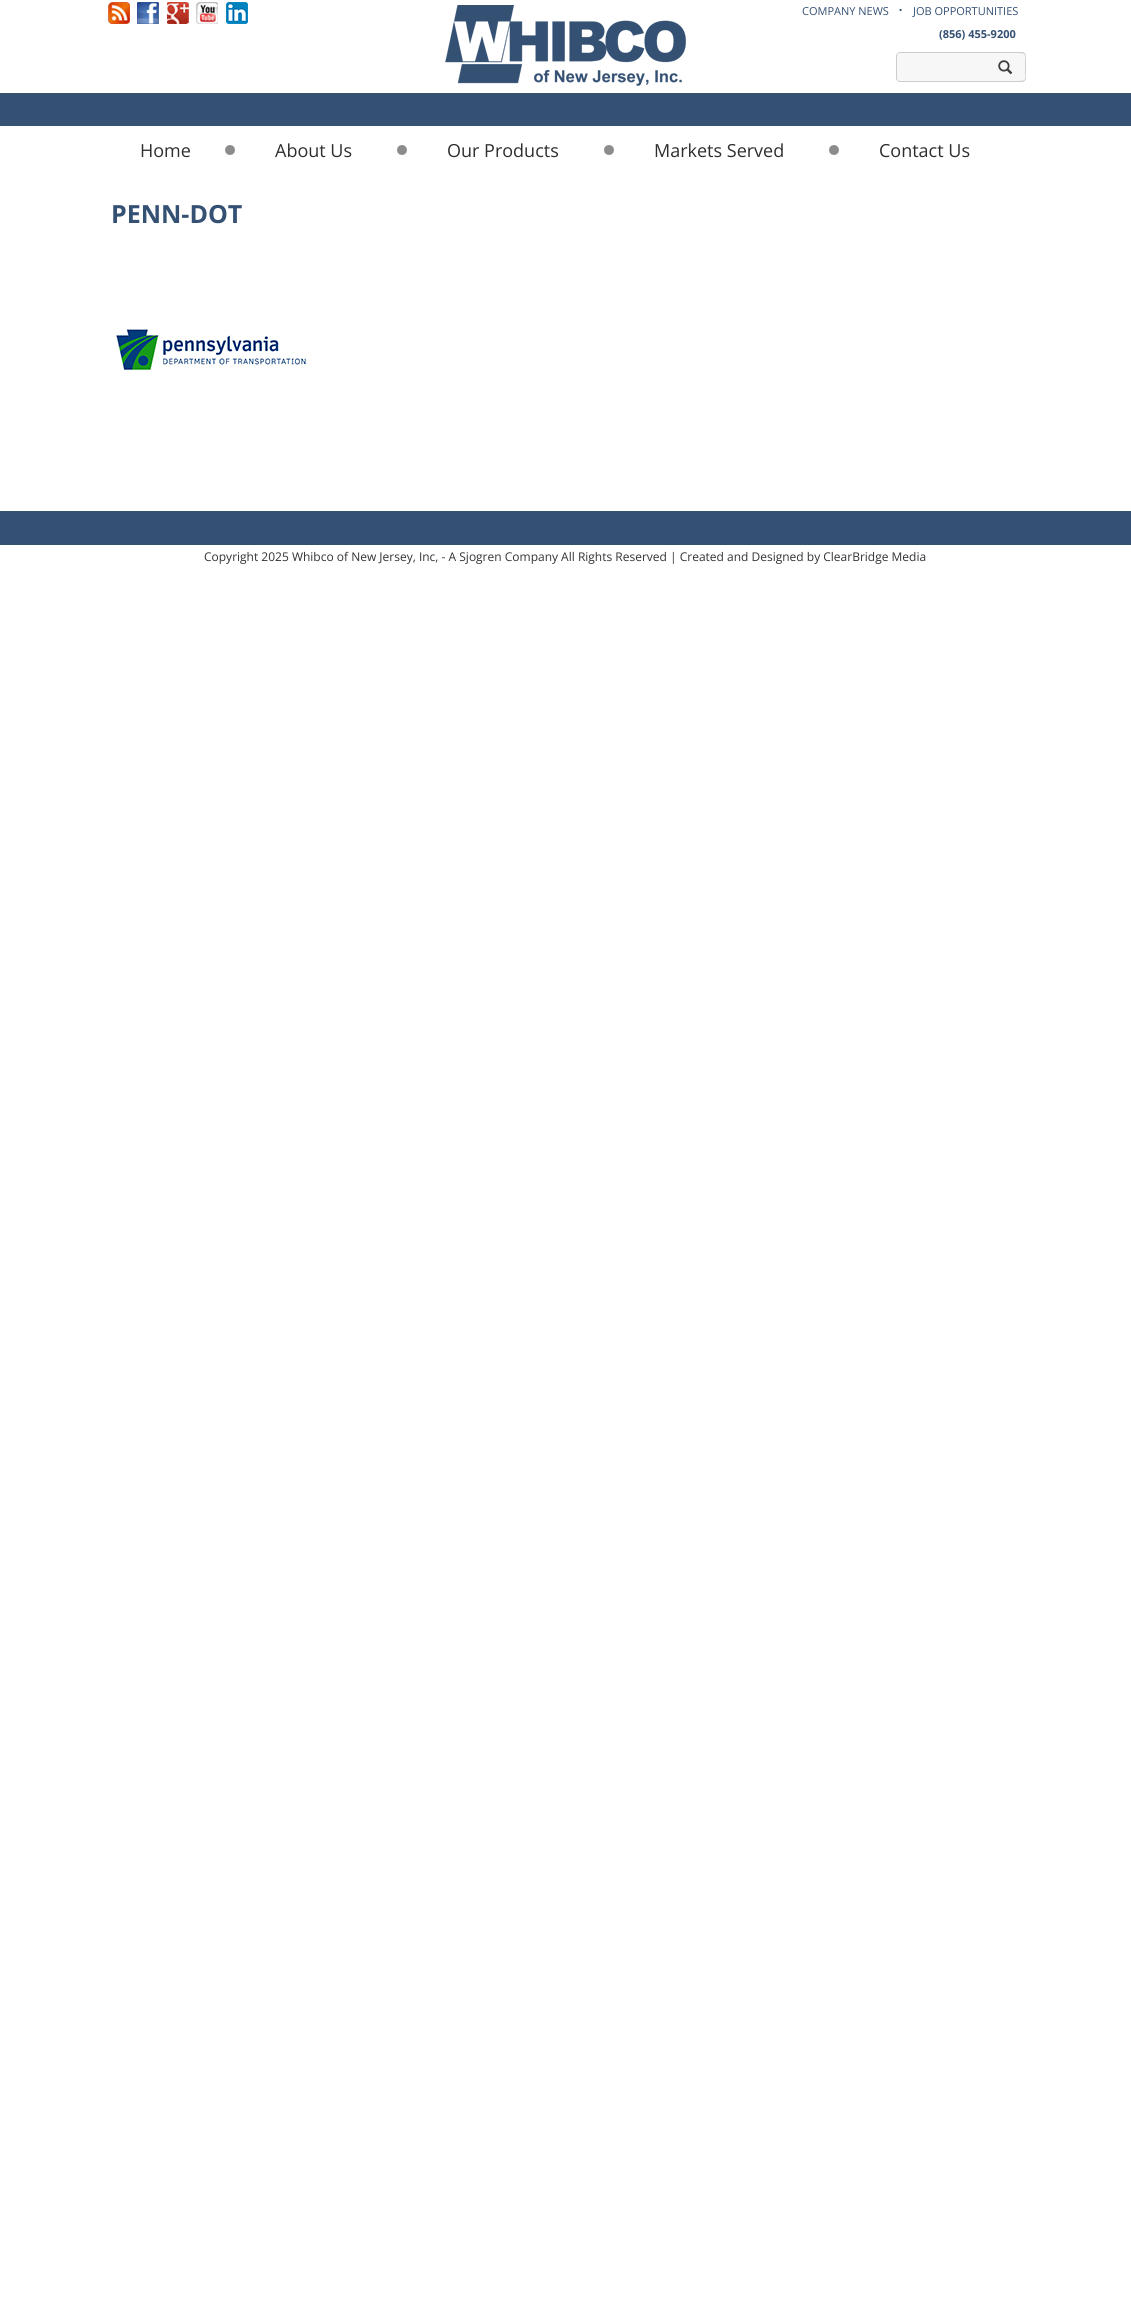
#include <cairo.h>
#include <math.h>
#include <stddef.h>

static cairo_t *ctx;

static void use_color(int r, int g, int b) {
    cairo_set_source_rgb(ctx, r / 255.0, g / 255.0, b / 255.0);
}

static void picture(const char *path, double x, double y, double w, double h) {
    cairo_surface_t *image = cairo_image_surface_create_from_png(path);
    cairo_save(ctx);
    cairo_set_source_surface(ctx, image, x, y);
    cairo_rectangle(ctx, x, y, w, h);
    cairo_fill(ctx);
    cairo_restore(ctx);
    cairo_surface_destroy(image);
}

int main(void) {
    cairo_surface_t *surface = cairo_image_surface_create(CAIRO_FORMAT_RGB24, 1131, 2299);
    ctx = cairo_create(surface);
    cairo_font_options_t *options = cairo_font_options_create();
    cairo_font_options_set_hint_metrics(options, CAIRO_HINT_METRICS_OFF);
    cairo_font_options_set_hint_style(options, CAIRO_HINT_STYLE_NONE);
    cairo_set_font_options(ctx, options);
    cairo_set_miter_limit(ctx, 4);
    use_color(255, 255, 255);
    cairo_paint(ctx);
    picture("img1.png", 445, 5, 241, 81);
    use_color(52, 80, 115);
    cairo_rectangle(ctx, 0, 93, 1131, 33);
    cairo_fill(ctx);
    picture("img2.png", 108, 2, 22, 22);
    picture("img3.png", 137, 2, 22, 22);
    picture("img4.png", 167, 2, 22, 22);
    picture("img5.png", 196, 2, 22, 22);
    picture("img6.png", 226, 2, 22, 22);
    cairo_select_font_face(ctx, "Open Sans", CAIRO_FONT_SLANT_NORMAL, CAIRO_FONT_WEIGHT_NORMAL);
    cairo_set_font_size(ctx, 11);
    cairo_move_to(ctx, 802, 15);
    cairo_show_text(ctx, "COMPANY NEWS");
    picture("img7.png", 899, 9, 3, 2);
    cairo_move_to(ctx, 913, 15);
    cairo_show_text(ctx, "JOB OPPORTUNITIES");
    cairo_select_font_face(ctx, "Open Sans", CAIRO_FONT_SLANT_NORMAL, CAIRO_FONT_WEIGHT_BOLD);
    cairo_move_to(ctx, 939, 38);
    cairo_show_text(ctx, "(856) 455-9200");
    use_color(247, 247, 247);
    cairo_new_path(ctx);
    cairo_move_to(ctx, 986, 52);
    cairo_line_to(ctx, 1022, 52);
    cairo_curve_to(ctx, 1024, 52, 1026, 54, 1026, 56);
    cairo_line_to(ctx, 1026, 78);
    cairo_curve_to(ctx, 1026, 80, 1024, 82, 1022, 82);
    cairo_line_to(ctx, 986, 82);
    cairo_close_path(ctx);
    cairo_fill(ctx);
    use_color(204, 204, 204);
    cairo_set_fill_rule(ctx, CAIRO_FILL_RULE_EVEN_ODD);
    cairo_new_path(ctx);
    cairo_move_to(ctx, 986, 52);
    cairo_line_to(ctx, 1022, 52);
    cairo_curve_to(ctx, 1024, 52, 1026, 54, 1026, 56);
    cairo_line_to(ctx, 1026, 78);
    cairo_curve_to(ctx, 1026, 80, 1024, 82, 1022, 82);
    cairo_line_to(ctx, 986, 82);
    cairo_close_path(ctx);
    cairo_move_to(ctx, 986, 53);
    cairo_line_to(ctx, 1016, 53);
    cairo_curve_to(ctx, 1028, 53, 1025, 54, 1025, 67);
    cairo_curve_to(ctx, 1025, 80, 1028, 81, 1016, 81);
    cairo_line_to(ctx, 986, 81);
    cairo_close_path(ctx);
    cairo_fill(ctx);
    use_color(247, 247, 247);
    cairo_new_path(ctx);
    cairo_move_to(ctx, 900, 52);
    cairo_line_to(ctx, 987, 52);
    cairo_line_to(ctx, 987, 82);
    cairo_line_to(ctx, 900, 82);
    cairo_curve_to(ctx, 898, 82, 896, 80, 896, 78);
    cairo_line_to(ctx, 896, 56);
    cairo_curve_to(ctx, 896, 54, 898, 52, 900, 52);
    cairo_close_path(ctx);
    cairo_fill(ctx);
    use_color(204, 204, 204);
    cairo_new_path(ctx);
    cairo_move_to(ctx, 900, 52);
    cairo_line_to(ctx, 987, 52);
    cairo_line_to(ctx, 987, 82);
    cairo_line_to(ctx, 900, 82);
    cairo_curve_to(ctx, 898, 82, 896, 80, 896, 78);
    cairo_line_to(ctx, 896, 56);
    cairo_curve_to(ctx, 896, 54, 898, 52, 900, 52);
    cairo_close_path(ctx);
    cairo_move_to(ctx, 900, 53);
    cairo_line_to(ctx, 987, 53);
    cairo_line_to(ctx, 987, 81);
    cairo_line_to(ctx, 900, 81);
    cairo_curve_to(ctx, 898, 81, 897, 80, 897, 78);
    cairo_line_to(ctx, 897, 56);
    cairo_curve_to(ctx, 897, 54, 898, 53, 900, 53);
    cairo_close_path(ctx);
    cairo_fill(ctx);
    picture("img8.png", 998, 60, 15, 15);
    cairo_select_font_face(ctx, "Open Sans", CAIRO_FONT_SLANT_NORMAL, CAIRO_FONT_WEIGHT_NORMAL);
    cairo_set_font_size(ctx, 18);
    use_color(48, 45, 46);
    cairo_move_to(ctx, 140, 157);
    cairo_show_text(ctx, "Home");
    picture("img9.png", 225, 145, 10, 10);
    cairo_move_to(ctx, 275, 157);
    cairo_show_text(ctx, "About Us");
    picture("img9.png", 397, 145, 10, 10);
    cairo_move_to(ctx, 447, 157);
    cairo_show_text(ctx, "Our Products");
    picture("img9.png", 604, 145, 10, 10);
    cairo_move_to(ctx, 654, 157);
    cairo_show_text(ctx, "Markets Served");
    picture("img9.png", 829, 145, 10, 10);
    cairo_move_to(ctx, 879, 157);
    cairo_show_text(ctx, "Contact Us");
    cairo_select_font_face(ctx, "Open Sans", CAIRO_FONT_SLANT_NORMAL, CAIRO_FONT_WEIGHT_BOLD);
    cairo_set_font_size(ctx, 25);
    use_color(52, 80, 115);
    cairo_move_to(ctx, 111, 223);
    cairo_show_text(ctx, "PENN-DOT");
    picture("img10.png", 116, 329, 190, 46);
    cairo_rectangle(ctx, 0, 511, 1131, 34);
    cairo_fill(ctx);
    cairo_select_font_face(ctx, "Open Sans", CAIRO_FONT_SLANT_NORMAL, CAIRO_FONT_WEIGHT_NORMAL);
    cairo_set_font_size(ctx, 12);
    use_color(51, 51, 51);
    cairo_move_to(ctx, 204, 561);
    cairo_show_text(ctx, "Copyright 2025 Whibco of New Jersey, Inc, - A Sjogren Company All Rights Reserved | Created and Designed by ClearBridge Media");
    cairo_surface_write_to_png(surface, "result.png");
    cairo_font_options_destroy(options);
    cairo_destroy(ctx);
    cairo_surface_destroy(surface);
    return 0;
}
